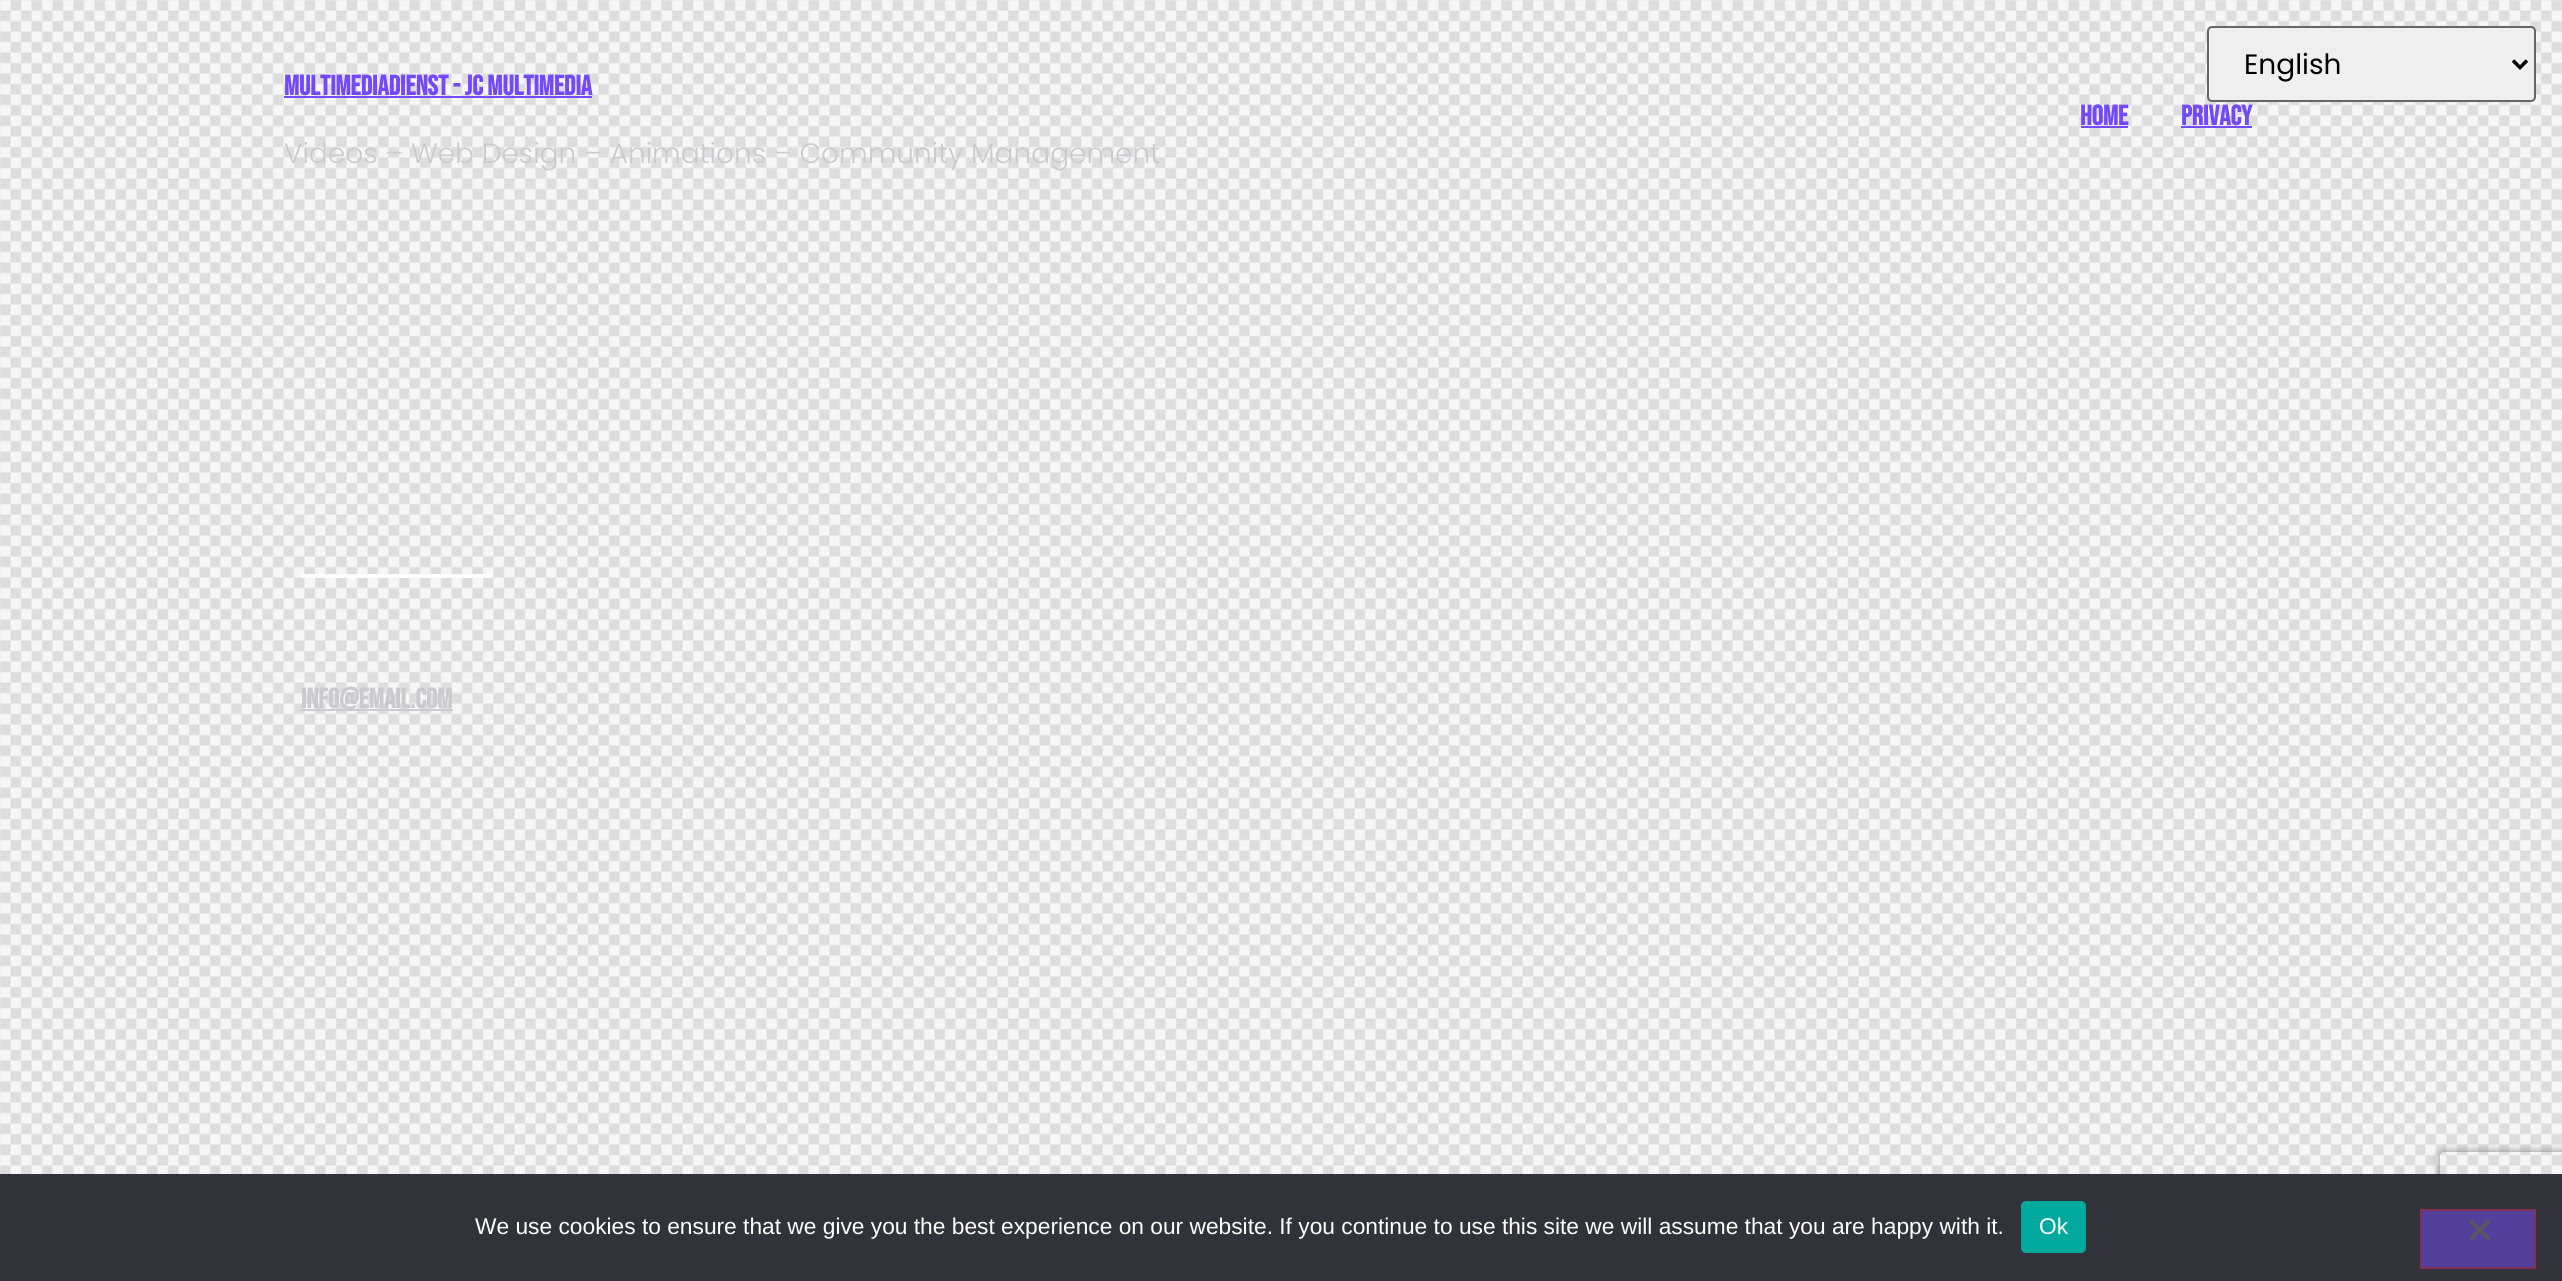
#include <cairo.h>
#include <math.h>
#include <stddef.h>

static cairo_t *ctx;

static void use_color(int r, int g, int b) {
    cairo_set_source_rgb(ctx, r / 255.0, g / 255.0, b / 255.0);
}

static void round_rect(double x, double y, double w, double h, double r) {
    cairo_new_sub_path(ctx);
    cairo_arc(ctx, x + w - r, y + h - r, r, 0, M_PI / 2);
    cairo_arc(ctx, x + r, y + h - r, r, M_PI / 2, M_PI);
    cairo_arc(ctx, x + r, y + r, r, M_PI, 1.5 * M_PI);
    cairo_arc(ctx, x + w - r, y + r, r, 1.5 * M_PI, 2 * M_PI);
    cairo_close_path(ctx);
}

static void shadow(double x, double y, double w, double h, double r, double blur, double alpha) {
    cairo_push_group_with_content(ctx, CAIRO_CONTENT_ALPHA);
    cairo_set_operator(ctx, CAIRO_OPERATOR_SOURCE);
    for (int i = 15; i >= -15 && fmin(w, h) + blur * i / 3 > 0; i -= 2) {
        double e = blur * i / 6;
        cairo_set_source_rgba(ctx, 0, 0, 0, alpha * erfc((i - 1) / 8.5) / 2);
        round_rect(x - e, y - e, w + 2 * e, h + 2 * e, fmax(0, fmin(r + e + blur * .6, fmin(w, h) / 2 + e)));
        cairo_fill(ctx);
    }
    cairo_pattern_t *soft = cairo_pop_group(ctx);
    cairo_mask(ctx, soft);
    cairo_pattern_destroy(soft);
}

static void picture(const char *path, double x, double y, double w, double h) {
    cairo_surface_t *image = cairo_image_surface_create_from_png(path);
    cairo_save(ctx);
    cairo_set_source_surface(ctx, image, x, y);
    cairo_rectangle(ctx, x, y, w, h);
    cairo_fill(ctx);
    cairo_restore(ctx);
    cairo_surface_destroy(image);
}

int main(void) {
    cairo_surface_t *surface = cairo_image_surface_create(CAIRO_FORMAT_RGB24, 2562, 1281);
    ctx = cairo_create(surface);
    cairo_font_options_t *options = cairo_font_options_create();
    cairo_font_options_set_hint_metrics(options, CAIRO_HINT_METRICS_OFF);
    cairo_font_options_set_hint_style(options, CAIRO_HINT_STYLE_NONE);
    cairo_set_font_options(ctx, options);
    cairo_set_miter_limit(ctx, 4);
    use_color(255, 255, 255);
    cairo_paint(ctx);
    picture("img1.png", 0, 0, 2562, 1174);
    use_color(239, 239, 239);
    round_rect(2208, 27, 327, 74, 4);
    cairo_fill_preserve(ctx);
    use_color(102, 102, 102);
    cairo_stroke(ctx);
    cairo_new_path(ctx);
    cairo_move_to(ctx, 2513, 60.5);
    cairo_line_to(ctx, 2520, 67.5);
    cairo_line_to(ctx, 2527, 60.5);
    use_color(0, 0, 0);
    cairo_set_line_width(ctx, 3.5);
    cairo_stroke(ctx);
    cairo_select_font_face(ctx, "Poppins", CAIRO_FONT_SLANT_NORMAL, CAIRO_FONT_WEIGHT_NORMAL);
    cairo_set_font_size(ctx, 28);
    cairo_move_to(ctx, 2244, 74);
    cairo_show_text(ctx, "English");
    cairo_select_font_face(ctx, "Bebas Neue", CAIRO_FONT_SLANT_NORMAL, CAIRO_FONT_WEIGHT_BOLD);
    use_color(115, 73, 252);
    cairo_move_to(ctx, 284, 95);
    cairo_show_text(ctx, "Multimediadienst - JC Multimedia");
    cairo_rectangle(ctx, 284, 96, 308, 2);
    cairo_fill(ctx);
    cairo_select_font_face(ctx, "Poppins Light", CAIRO_FONT_SLANT_NORMAL, CAIRO_FONT_WEIGHT_NORMAL);
    use_color(203, 203, 205);
    cairo_move_to(ctx, 284, 163);
    cairo_show_text(ctx, "Videos – Web Design – Animations – Community Management");
    cairo_select_font_face(ctx, "Bebas Neue", CAIRO_FONT_SLANT_NORMAL, CAIRO_FONT_WEIGHT_BOLD);
    use_color(115, 73, 252);
    cairo_move_to(ctx, 2080, 125);
    cairo_show_text(ctx, "Home");
    cairo_rectangle(ctx, 2081, 126, 47, 2);
    cairo_fill(ctx);
    cairo_move_to(ctx, 2181, 125);
    cairo_show_text(ctx, "Privacy");
    cairo_rectangle(ctx, 2181, 126, 71, 2);
    cairo_fill(ctx);
    cairo_set_source_rgba(ctx, 1, 1, 1, 0.2);
    cairo_rectangle(ctx, 301, 460, 1960, 2);
    cairo_fill(ctx);
    use_color(255, 255, 255);
    cairo_rectangle(ctx, 301, 574, 191, 4);
    cairo_fill(ctx);
    use_color(203, 203, 205);
    cairo_rectangle(ctx, 301, 709, 152, 2);
    cairo_fill(ctx);
    cairo_move_to(ctx, 301, 708);
    cairo_show_text(ctx, "info@email.com");
    cairo_save(ctx);
    cairo_set_fill_rule(ctx, CAIRO_FILL_RULE_EVEN_ODD);
    cairo_new_path(ctx);
    cairo_move_to(ctx, 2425, 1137);
    cairo_line_to(ctx, 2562, 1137);
    cairo_line_to(ctx, 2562, 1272);
    cairo_line_to(ctx, 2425, 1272);
    cairo_close_path(ctx);
    cairo_move_to(ctx, 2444, 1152);
    cairo_line_to(ctx, 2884, 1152);
    cairo_curve_to(ctx, 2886, 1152, 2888, 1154, 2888, 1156);
    cairo_line_to(ctx, 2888, 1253);
    cairo_curve_to(ctx, 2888, 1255, 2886, 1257, 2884, 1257);
    cairo_line_to(ctx, 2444, 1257);
    cairo_curve_to(ctx, 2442, 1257, 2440, 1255, 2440, 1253);
    cairo_line_to(ctx, 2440, 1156);
    cairo_curve_to(ctx, 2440, 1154, 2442, 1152, 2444, 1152);
    cairo_close_path(ctx);
    cairo_clip(ctx);
    use_color(128, 128, 128);
    shadow(2440, 1152, 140, 105, 4, 4.5, 1);
    cairo_restore(ctx);
    use_color(50, 50, 58);
    cairo_rectangle(ctx, 0, 1174, 2562, 107);
    cairo_fill(ctx);
    cairo_select_font_face(ctx, "Liberation Sans", CAIRO_FONT_SLANT_NORMAL, CAIRO_FONT_WEIGHT_NORMAL);
    cairo_set_font_size(ctx, 22.75);
    use_color(255, 255, 255);
    cairo_move_to(ctx, 475, 1234);
    cairo_show_text(ctx, "We use cookies to ensure that we give you the best experience on our website. If you continue to use this site we will assume that you are happy with it.");
    use_color(0, 169, 157);
    round_rect(2021, 1201, 65, 52, 5);
    cairo_fill(ctx);
    use_color(255, 255, 255);
    cairo_move_to(ctx, 2039, 1234);
    cairo_show_text(ctx, "Ok");
    use_color(83, 62, 155);
    cairo_rectangle(ctx, 2421, 1210, 114, 58);
    cairo_fill_preserve(ctx);
    use_color(127, 51, 80);
    cairo_set_line_width(ctx, 2);
    cairo_stroke(ctx);
    use_color(89, 89, 93);
    cairo_new_path(ctx);
    cairo_move_to(ctx, 2488, 1219.5);
    cairo_line_to(ctx, 2490.5, 1222);
    cairo_line_to(ctx, 2471.5, 1240.5);
    cairo_line_to(ctx, 2469, 1238);
    cairo_close_path(ctx);
    cairo_fill(ctx);
    cairo_new_path(ctx);
    cairo_move_to(ctx, 2469, 1222);
    cairo_line_to(ctx, 2471.5, 1219.5);
    cairo_line_to(ctx, 2490.5, 1238);
    cairo_line_to(ctx, 2488, 1240.5);
    cairo_close_path(ctx);
    cairo_fill(ctx);
    cairo_surface_write_to_png(surface, "result.png");
    cairo_font_options_destroy(options);
    cairo_destroy(ctx);
    cairo_surface_destroy(surface);
    return 0;
}
